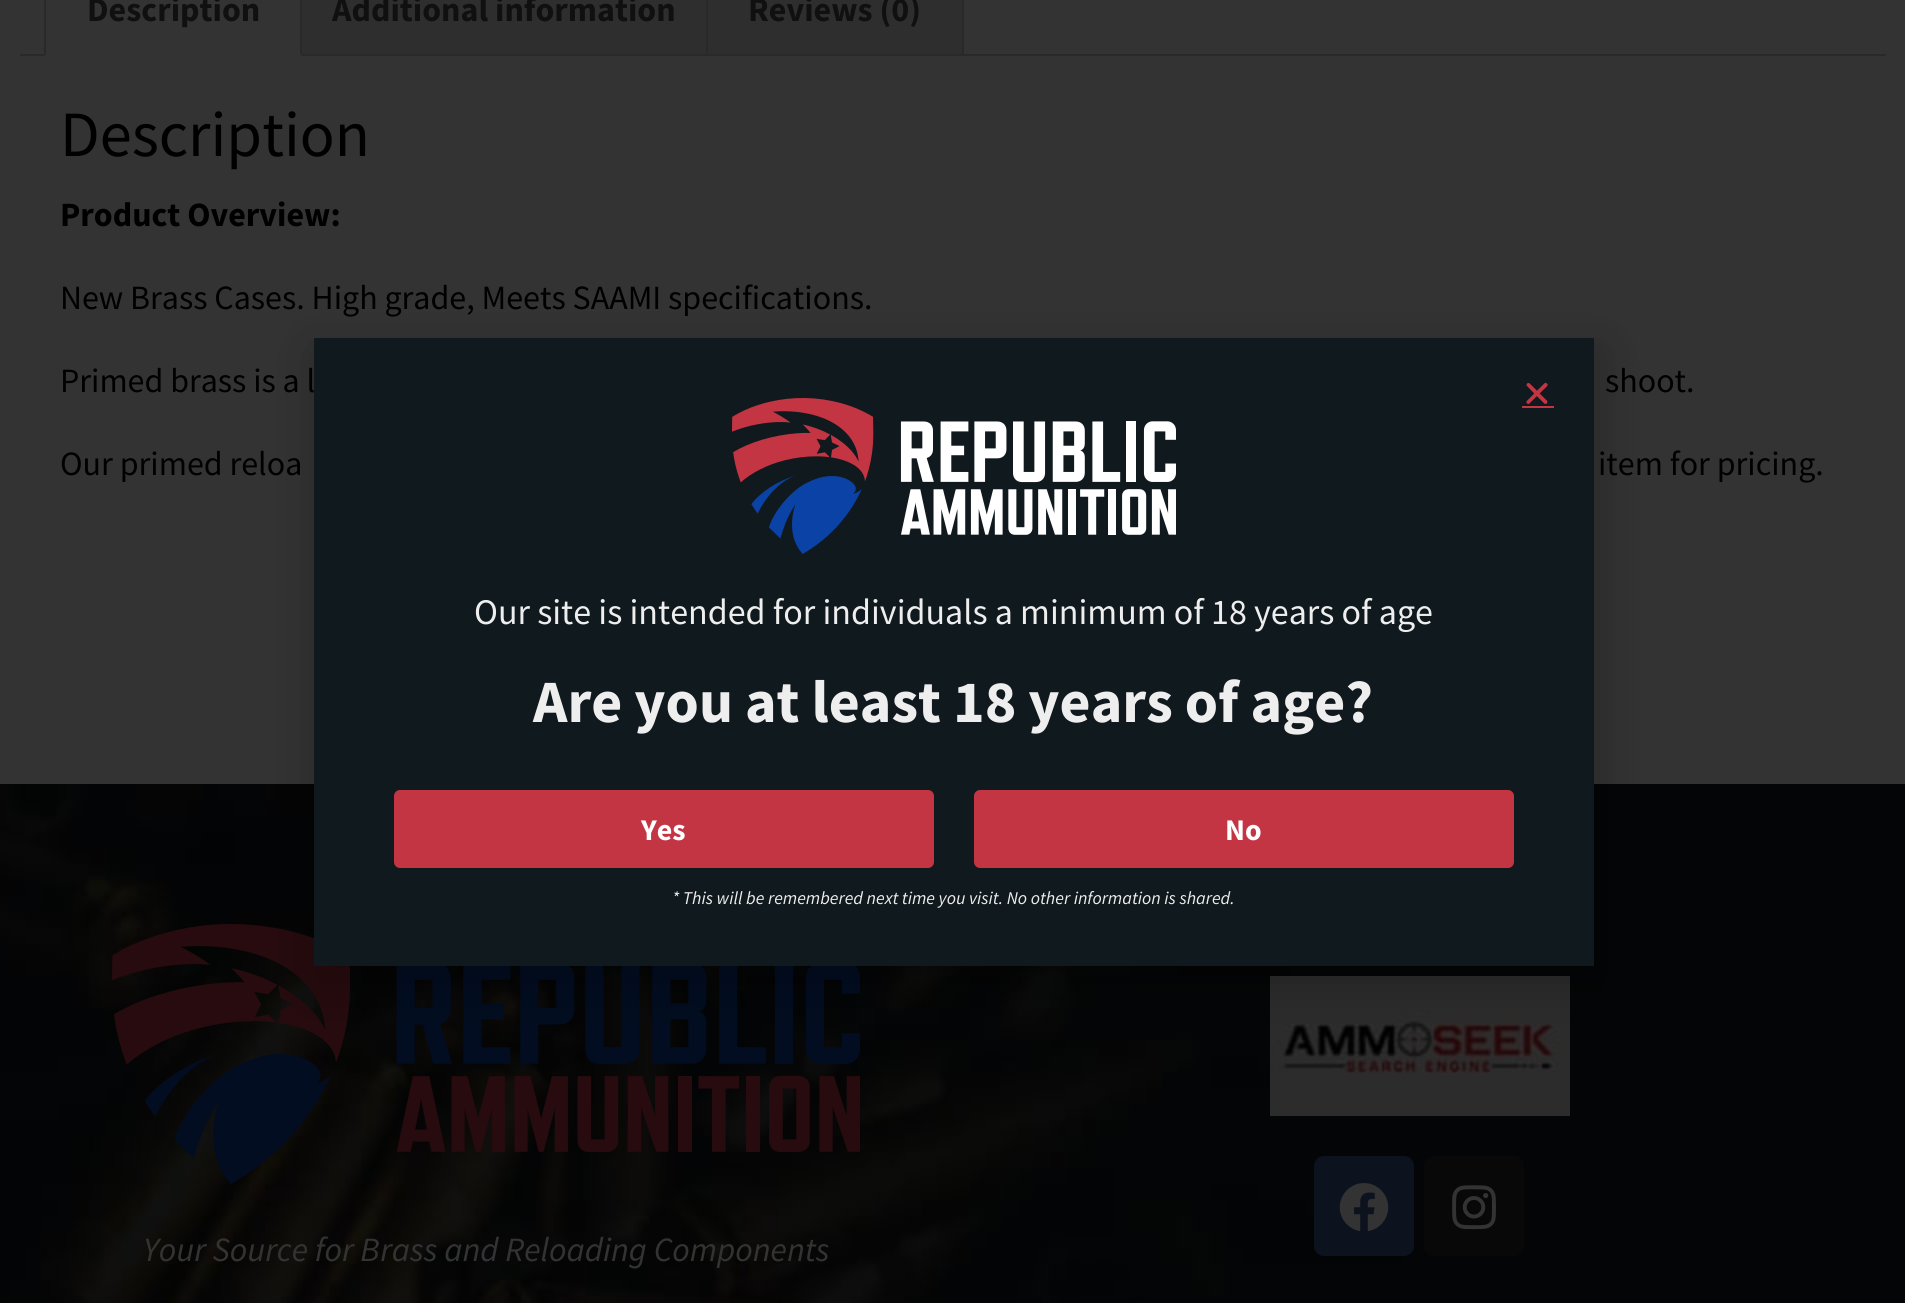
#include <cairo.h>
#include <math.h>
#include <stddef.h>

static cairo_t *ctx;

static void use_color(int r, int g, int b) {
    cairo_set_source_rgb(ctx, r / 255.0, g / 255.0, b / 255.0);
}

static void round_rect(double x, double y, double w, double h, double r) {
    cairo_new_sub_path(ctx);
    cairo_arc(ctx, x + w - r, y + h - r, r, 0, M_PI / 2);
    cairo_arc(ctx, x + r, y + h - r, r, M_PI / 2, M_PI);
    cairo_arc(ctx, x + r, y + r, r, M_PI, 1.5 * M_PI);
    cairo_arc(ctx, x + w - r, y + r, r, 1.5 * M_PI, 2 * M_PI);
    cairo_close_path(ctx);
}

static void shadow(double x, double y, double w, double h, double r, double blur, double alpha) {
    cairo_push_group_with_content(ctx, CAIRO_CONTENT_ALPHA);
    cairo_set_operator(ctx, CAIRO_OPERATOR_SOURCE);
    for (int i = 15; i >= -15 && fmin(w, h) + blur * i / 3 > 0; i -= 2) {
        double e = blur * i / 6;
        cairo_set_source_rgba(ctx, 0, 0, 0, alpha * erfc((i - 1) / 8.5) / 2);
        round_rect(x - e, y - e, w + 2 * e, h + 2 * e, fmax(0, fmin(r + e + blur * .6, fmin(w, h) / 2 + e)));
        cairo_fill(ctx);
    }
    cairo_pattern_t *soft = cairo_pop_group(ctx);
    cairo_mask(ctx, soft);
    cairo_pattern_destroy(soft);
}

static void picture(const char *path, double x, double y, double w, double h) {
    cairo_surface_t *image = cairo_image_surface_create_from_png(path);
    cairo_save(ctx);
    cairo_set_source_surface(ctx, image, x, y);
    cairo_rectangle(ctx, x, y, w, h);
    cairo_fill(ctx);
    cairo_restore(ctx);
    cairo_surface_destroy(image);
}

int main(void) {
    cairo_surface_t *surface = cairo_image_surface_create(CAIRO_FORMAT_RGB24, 1905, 1303);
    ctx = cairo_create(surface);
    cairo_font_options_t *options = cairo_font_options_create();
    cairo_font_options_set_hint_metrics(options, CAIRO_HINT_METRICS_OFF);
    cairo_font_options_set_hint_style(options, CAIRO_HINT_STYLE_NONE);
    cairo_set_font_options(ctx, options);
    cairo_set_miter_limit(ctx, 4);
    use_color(51, 51, 51);
    cairo_paint(ctx);
    use_color(47, 46, 47);
    cairo_rectangle(ctx, 302, 0, 404, 54);
    cairo_fill(ctx);
    use_color(42, 41, 42);
    cairo_rectangle(ctx, 20, 54, 1866, 2);
    cairo_fill(ctx);
    cairo_rectangle(ctx, 291, -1, 426, 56);
    use_color(41, 40, 43);
    cairo_stroke(ctx);
    use_color(51, 51, 51);
    cairo_rectangle(ctx, 44, 0, 258, 56);
    cairo_fill(ctx);
    use_color(41, 40, 43);
    cairo_new_path(ctx);
    cairo_move_to(ctx, 302, 56);
    cairo_line_to(ctx, 302, -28);
    cairo_curve_to(ctx, 302, -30, 301, -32, 300, -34);
    cairo_line_to(ctx, 298, -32);
    cairo_line_to(ctx, 300, -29);
    cairo_line_to(ctx, 300, 54);
    cairo_close_path(ctx);
    cairo_fill(ctx);
    use_color(51, 51, 51);
    cairo_new_path(ctx);
    cairo_move_to(ctx, 302, 56);
    cairo_line_to(ctx, 300, 54);
    cairo_line_to(ctx, 46, 54);
    cairo_line_to(ctx, 44, 56);
    cairo_close_path(ctx);
    cairo_fill(ctx);
    use_color(41, 40, 43);
    cairo_new_path(ctx);
    cairo_move_to(ctx, 44, 56);
    cairo_line_to(ctx, 46, 54);
    cairo_line_to(ctx, 46, -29);
    cairo_line_to(ctx, 48, -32);
    cairo_line_to(ctx, 46, -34);
    cairo_curve_to(ctx, 45, -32, 44, -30, 44, -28);
    cairo_close_path(ctx);
    cairo_fill(ctx);
    cairo_select_font_face(ctx, "Source Sans Pro", CAIRO_FONT_SLANT_NORMAL, CAIRO_FONT_WEIGHT_BOLD);
    cairo_set_font_size(ctx, 34);
    use_color(16, 16, 16);
    cairo_move_to(ctx, 87, 21);
    cairo_show_text(ctx, "Description");
    cairo_move_to(ctx, 332, 21);
    cairo_show_text(ctx, "Additional information");
    use_color(47, 46, 47);
    cairo_rectangle(ctx, 707, -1, 256, 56);
    cairo_fill_preserve(ctx);
    use_color(41, 40, 43);
    cairo_stroke(ctx);
    use_color(16, 16, 16);
    cairo_move_to(ctx, 748, 21);
    cairo_show_text(ctx, "Reviews (0)");
    cairo_select_font_face(ctx, "Source Sans Pro", CAIRO_FONT_SLANT_NORMAL, CAIRO_FONT_WEIGHT_NORMAL);
    cairo_set_font_size(ctx, 64.5);
    use_color(0, 0, 0);
    cairo_move_to(ctx, 60, 156);
    cairo_show_text(ctx, "Description");
    cairo_select_font_face(ctx, "Source Sans Pro", CAIRO_FONT_SLANT_NORMAL, CAIRO_FONT_WEIGHT_BOLD);
    cairo_set_font_size(ctx, 34);
    cairo_move_to(ctx, 60, 226);
    cairo_show_text(ctx, "Product Overview:");
    cairo_select_font_face(ctx, "Source Sans Pro", CAIRO_FONT_SLANT_NORMAL, CAIRO_FONT_WEIGHT_NORMAL);
    cairo_move_to(ctx, 60, 309);
    cairo_show_text(ctx, "New Brass Cases. High grade, Meets SAAMI specifications.");
    cairo_move_to(ctx, 60, 392);
    cairo_show_text(ctx, "Primed brass is a l");
    cairo_move_to(ctx, 1605, 392);
    cairo_show_text(ctx, "shoot.");
    cairo_move_to(ctx, 60, 475);
    cairo_show_text(ctx, "Our primed reloa");
    cairo_move_to(ctx, 1598, 475);
    cairo_show_text(ctx, "item for pricing.");
    use_color(3, 5, 6);
    cairo_rectangle(ctx, 1449, 784, 456, 519);
    cairo_fill(ctx);
    picture("img3.png", 0, 784, 1449, 519);
    picture("img4.png", 112, 924, 748, 260);
    picture("img5.png", 1270, 976, 300, 140);
    use_color(0, 0, 0);
    shadow(312, 348, 1292, 640, 0, 23, 0.2);
    use_color(16, 25, 29);
    cairo_rectangle(ctx, 314, 338, 1280, 628);
    cairo_fill(ctx);
    picture("img1.png", 1526, 382, 22, 22);
    use_color(196, 53, 68);
    cairo_rectangle(ctx, 1522, 406, 32, 2);
    cairo_fill(ctx);
    picture("img2.png", 732, 398, 444, 156);
    cairo_set_font_size(ctx, 36);
    use_color(238, 238, 238);
    cairo_move_to(ctx, 474, 624);
    cairo_show_text(ctx, "Our site is intended for individuals a minimum of 18 years of age");
    cairo_select_font_face(ctx, "Source Sans Pro", CAIRO_FONT_SLANT_NORMAL, CAIRO_FONT_WEIGHT_BOLD);
    cairo_set_font_size(ctx, 60);
    cairo_move_to(ctx, 533, 722);
    cairo_show_text(ctx, "Are you at least 18 years of age?");
    use_color(196, 53, 68);
    round_rect(394, 790, 540, 78, 6);
    cairo_fill(ctx);
    cairo_set_font_size(ctx, 30);
    use_color(255, 255, 255);
    cairo_move_to(ctx, 641, 840);
    cairo_show_text(ctx, "Yes");
    use_color(196, 53, 68);
    round_rect(974, 790, 540, 78, 6);
    cairo_fill(ctx);
    use_color(255, 255, 255);
    cairo_move_to(ctx, 1225, 840);
    cairo_show_text(ctx, "No");
    cairo_select_font_face(ctx, "Source Sans Pro", CAIRO_FONT_SLANT_ITALIC, CAIRO_FONT_WEIGHT_NORMAL);
    cairo_set_font_size(ctx, 18);
    use_color(238, 238, 238);
    cairo_move_to(ctx, 672, 904);
    cairo_show_text(ctx, "* This will be remembered next time you visit. No other information is shared.");
    cairo_set_font_size(ctx, 34);
    use_color(51, 51, 51);
    cairo_move_to(ctx, 143, 1261);
    cairo_show_text(ctx, "Your Source for Brass and Reloading Components");
    use_color(12, 18, 30);
    round_rect(1314, 1156, 100, 100, 10);
    cairo_fill(ctx);
    picture("img6.png", 1339, 1183, 50, 49);
    use_color(8, 8, 8);
    round_rect(1424, 1156, 100, 100, 10);
    cairo_fill(ctx);
    picture("img7.png", 1452, 1185, 44, 45);
    cairo_surface_write_to_png(surface, "result.png");
    cairo_font_options_destroy(options);
    cairo_destroy(ctx);
    cairo_surface_destroy(surface);
    return 0;
}
